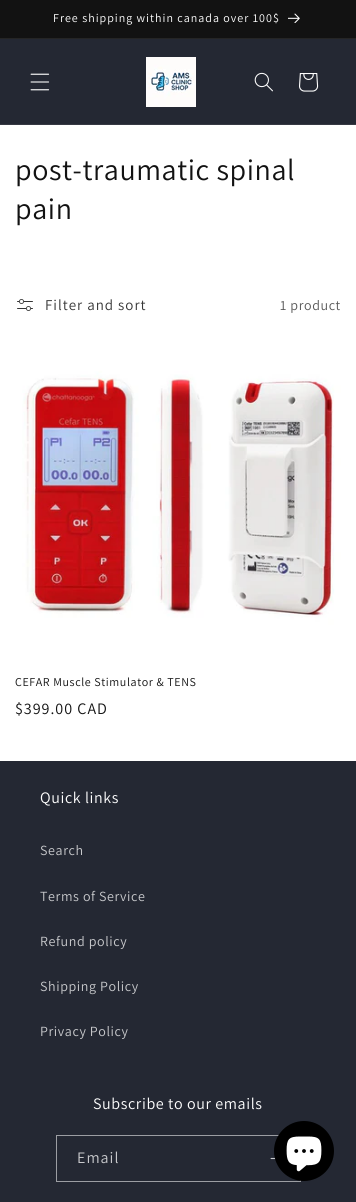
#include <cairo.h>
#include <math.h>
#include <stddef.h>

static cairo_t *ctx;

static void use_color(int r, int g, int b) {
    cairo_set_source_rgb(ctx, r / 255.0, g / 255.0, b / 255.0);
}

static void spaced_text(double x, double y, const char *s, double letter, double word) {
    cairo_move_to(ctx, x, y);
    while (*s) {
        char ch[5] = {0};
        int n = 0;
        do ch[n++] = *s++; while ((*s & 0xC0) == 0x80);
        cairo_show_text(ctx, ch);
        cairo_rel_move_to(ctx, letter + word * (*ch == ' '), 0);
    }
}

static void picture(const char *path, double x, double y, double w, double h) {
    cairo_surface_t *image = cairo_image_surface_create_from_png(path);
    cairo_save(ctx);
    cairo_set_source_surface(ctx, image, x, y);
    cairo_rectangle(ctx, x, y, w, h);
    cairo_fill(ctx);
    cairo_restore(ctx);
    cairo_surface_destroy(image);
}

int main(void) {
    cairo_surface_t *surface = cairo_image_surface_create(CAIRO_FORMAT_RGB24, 356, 1202);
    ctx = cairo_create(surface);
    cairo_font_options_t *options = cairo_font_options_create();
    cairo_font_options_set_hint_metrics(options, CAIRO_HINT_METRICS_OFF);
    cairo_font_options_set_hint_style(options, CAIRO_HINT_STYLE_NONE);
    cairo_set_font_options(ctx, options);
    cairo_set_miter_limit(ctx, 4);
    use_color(255, 255, 255);
    cairo_paint(ctx);
    use_color(18, 18, 18);
    cairo_rectangle(ctx, 0, 0, 356, 38);
    cairo_fill(ctx);
    use_color(37, 37, 37);
    cairo_rectangle(ctx, 0, 38, 356, 1);
    cairo_fill(ctx);
    cairo_select_font_face(ctx, "Assistant", CAIRO_FONT_SLANT_NORMAL, CAIRO_FONT_WEIGHT_NORMAL);
    cairo_set_font_size(ctx, 12);
    use_color(255, 255, 255);
    spaced_text(53, 22, "Free shipping within canada over 100$", 1, 0);
    picture("img1.png", 288, 13, 12, 10);
    use_color(36, 40, 51);
    cairo_rectangle(ctx, 0, 39, 356, 85);
    cairo_fill(ctx);
    use_color(54, 57, 67);
    cairo_rectangle(ctx, 0, 124, 356, 1);
    cairo_fill(ctx);
    picture("img2.png", 30, 73, 20, 18);
    picture("img3.png", 146, 57, 50, 50);
    picture("img4.png", 254, 72, 19, 20);
    picture("img5.png", 299, 73, 20, 19);
    cairo_set_font_size(ctx, 30);
    use_color(18, 18, 18);
    spaced_text(15, 180, "post-traumatic spinal", 0.6, 0);
    spaced_text(15, 219, "pain", 0.6, 0);
    picture("img6.png", 17, 299, 16, 12);
    cairo_set_font_size(ctx, 15);
    use_color(54, 54, 54);
    spaced_text(45, 310, "Filter and sort", 1, 0);
    cairo_set_font_size(ctx, 14);
    use_color(89, 89, 89);
    spaced_text(280, 310, "1 product", 0.6, 0);
    picture("img7.png", 15, 335, 326, 326);
    cairo_set_font_size(ctx, 12);
    use_color(18, 18, 18);
    spaced_text(15, 686, "CEFAR Muscle Stimulator & TENS", 0.6, 0);
    cairo_set_font_size(ctx, 16);
    spaced_text(15, 714, "$399.00 CAD", 1, 0);
    use_color(36, 40, 51);
    cairo_rectangle(ctx, 0, 761, 356, 441);
    cairo_fill(ctx);
    use_color(255, 255, 255);
    spaced_text(40, 803, "Quick links", 0.6, 0);
    cairo_set_font_size(ctx, 14);
    use_color(200, 201, 204);
    spaced_text(40, 855, "Search", 0.6, 0);
    spaced_text(40, 901, "Terms of Service", 0.6, 0);
    spaced_text(40, 946, "Refund policy", 0.6, 0);
    spaced_text(40, 991, "Shipping Policy", 0.6, 0);
    spaced_text(40, 1036, "Privacy Policy", 0.6, 0);
    cairo_set_font_size(ctx, 16);
    use_color(255, 255, 255);
    spaced_text(93, 1109, "Subscribe to our emails", 0.6, 0);
    cairo_rectangle(ctx, 56.5, 1135.5, 244, 46);
    use_color(156, 158, 163);
    cairo_set_line_width(ctx, 1);
    cairo_stroke(ctx);
    use_color(200, 201, 204);
    spaced_text(77, 1163, "Email", 1, 0);
    picture("img8.png", 270, 1157, 6, 3);
    use_color(0, 0, 0);
    cairo_arc(ctx, 304, 1151, 30, 0, 2 * M_PI);
    cairo_fill(ctx);
    picture("img9.png", 286, 1136, 36, 36);
    cairo_surface_write_to_png(surface, "result.png");
    cairo_font_options_destroy(options);
    cairo_destroy(ctx);
    cairo_surface_destroy(surface);
    return 0;
}
